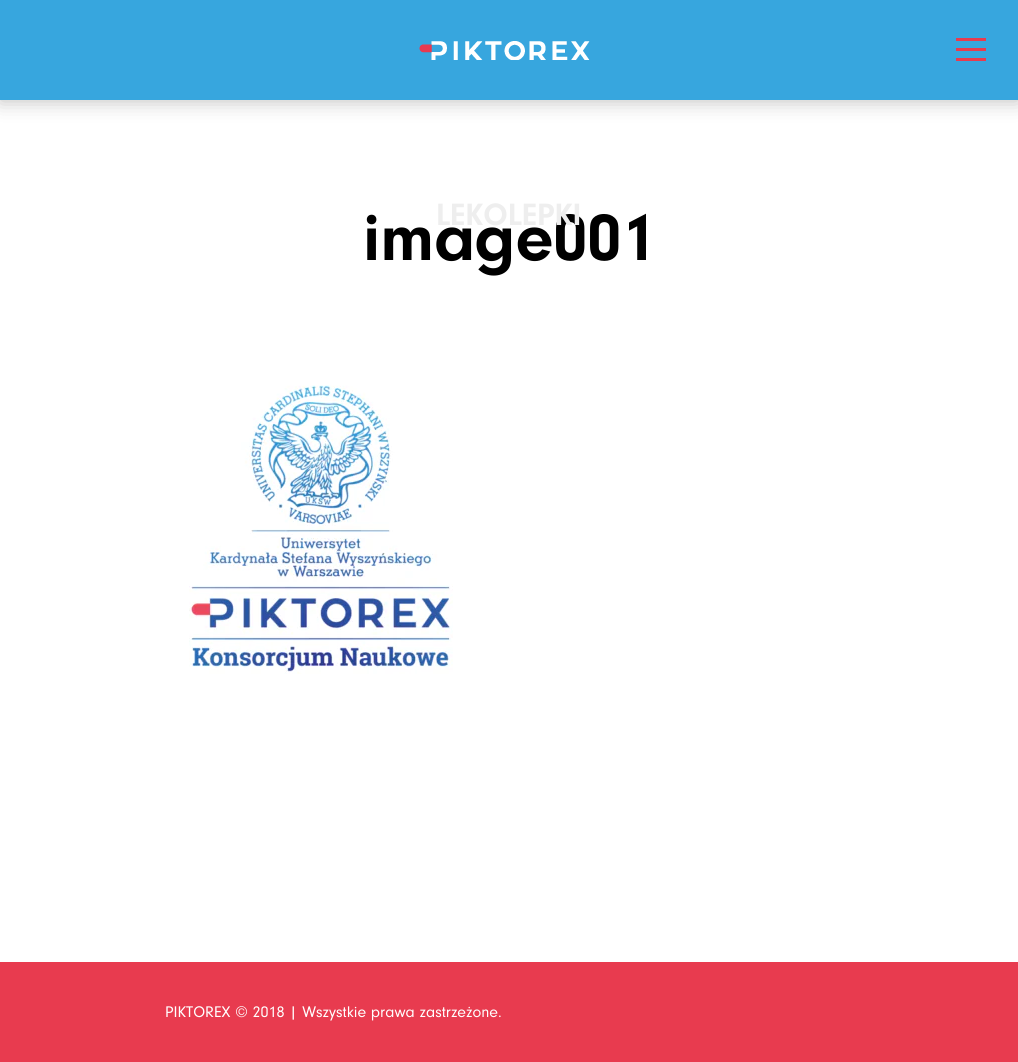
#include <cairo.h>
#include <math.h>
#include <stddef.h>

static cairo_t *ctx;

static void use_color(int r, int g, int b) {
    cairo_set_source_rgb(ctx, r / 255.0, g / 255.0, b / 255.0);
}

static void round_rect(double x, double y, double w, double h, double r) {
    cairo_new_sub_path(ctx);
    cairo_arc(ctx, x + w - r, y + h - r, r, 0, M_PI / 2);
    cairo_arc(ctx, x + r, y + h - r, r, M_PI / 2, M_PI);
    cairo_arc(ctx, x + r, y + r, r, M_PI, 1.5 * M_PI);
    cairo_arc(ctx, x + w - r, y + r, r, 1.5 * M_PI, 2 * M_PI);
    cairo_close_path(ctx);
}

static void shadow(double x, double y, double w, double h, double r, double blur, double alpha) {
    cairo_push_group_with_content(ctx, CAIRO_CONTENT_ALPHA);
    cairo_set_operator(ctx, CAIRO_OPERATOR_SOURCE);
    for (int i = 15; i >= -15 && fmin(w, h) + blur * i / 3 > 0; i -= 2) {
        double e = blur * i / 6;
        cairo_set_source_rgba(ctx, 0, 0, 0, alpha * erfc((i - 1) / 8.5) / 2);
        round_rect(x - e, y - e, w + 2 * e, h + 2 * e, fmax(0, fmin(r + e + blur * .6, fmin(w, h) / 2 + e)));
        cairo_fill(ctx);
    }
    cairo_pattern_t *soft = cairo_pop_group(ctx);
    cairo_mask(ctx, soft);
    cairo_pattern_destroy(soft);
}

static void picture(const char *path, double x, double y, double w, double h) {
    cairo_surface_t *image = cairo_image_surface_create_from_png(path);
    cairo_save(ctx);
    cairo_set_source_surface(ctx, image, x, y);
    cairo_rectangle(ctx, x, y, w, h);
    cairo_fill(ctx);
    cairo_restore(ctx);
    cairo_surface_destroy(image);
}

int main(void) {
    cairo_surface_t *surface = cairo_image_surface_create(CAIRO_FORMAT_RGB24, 1018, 1062);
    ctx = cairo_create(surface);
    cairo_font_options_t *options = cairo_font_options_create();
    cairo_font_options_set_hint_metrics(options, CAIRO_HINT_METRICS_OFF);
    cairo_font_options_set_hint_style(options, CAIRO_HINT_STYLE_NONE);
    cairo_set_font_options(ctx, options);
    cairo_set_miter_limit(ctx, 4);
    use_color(255, 255, 255);
    cairo_paint(ctx);
    use_color(41, 38, 35);
    shadow(0, 0, 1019, 101, 0, 10, 0.3);
    use_color(55, 166, 222);
    cairo_rectangle(ctx, 0, 0, 1018, 100);
    cairo_fill(ctx);
    picture("img1.png", 419, 41, 171, 19);
    use_color(232, 59, 79);
    cairo_rectangle(ctx, 956, 48, 30, 3);
    cairo_fill(ctx);
    cairo_rectangle(ctx, 956, 38, 30, 3);
    cairo_fill(ctx);
    cairo_rectangle(ctx, 956, 58, 30, 3);
    cairo_fill(ctx);
    cairo_select_font_face(ctx, "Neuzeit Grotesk", CAIRO_FONT_SLANT_NORMAL, CAIRO_FONT_WEIGHT_BOLD);
    cairo_set_font_size(ctx, 68);
    use_color(0, 0, 0);
    cairo_move_to(ctx, 363, 260);
    cairo_show_text(ctx, "image001");
    cairo_set_font_size(ctx, 32);
    use_color(238, 238, 238);
    cairo_move_to(ctx, 436, 225);
    cairo_show_text(ctx, "LEKOLEPKI");
    picture("img2.png", 189, 385, 264, 289);
    use_color(232, 59, 79);
    cairo_rectangle(ctx, 0, 962, 1018, 100);
    cairo_fill(ctx);
    cairo_select_font_face(ctx, "Neuzeit Grotesk", CAIRO_FONT_SLANT_NORMAL, CAIRO_FONT_WEIGHT_NORMAL);
    cairo_set_font_size(ctx, 16);
    use_color(255, 255, 255);
    cairo_move_to(ctx, 165, 1017);
    cairo_show_text(ctx, "PIKTOREX © 2018 | Wszystkie prawa zastrzeżone.");
    cairo_surface_write_to_png(surface, "result.png");
    cairo_font_options_destroy(options);
    cairo_destroy(ctx);
    cairo_surface_destroy(surface);
    return 0;
}
